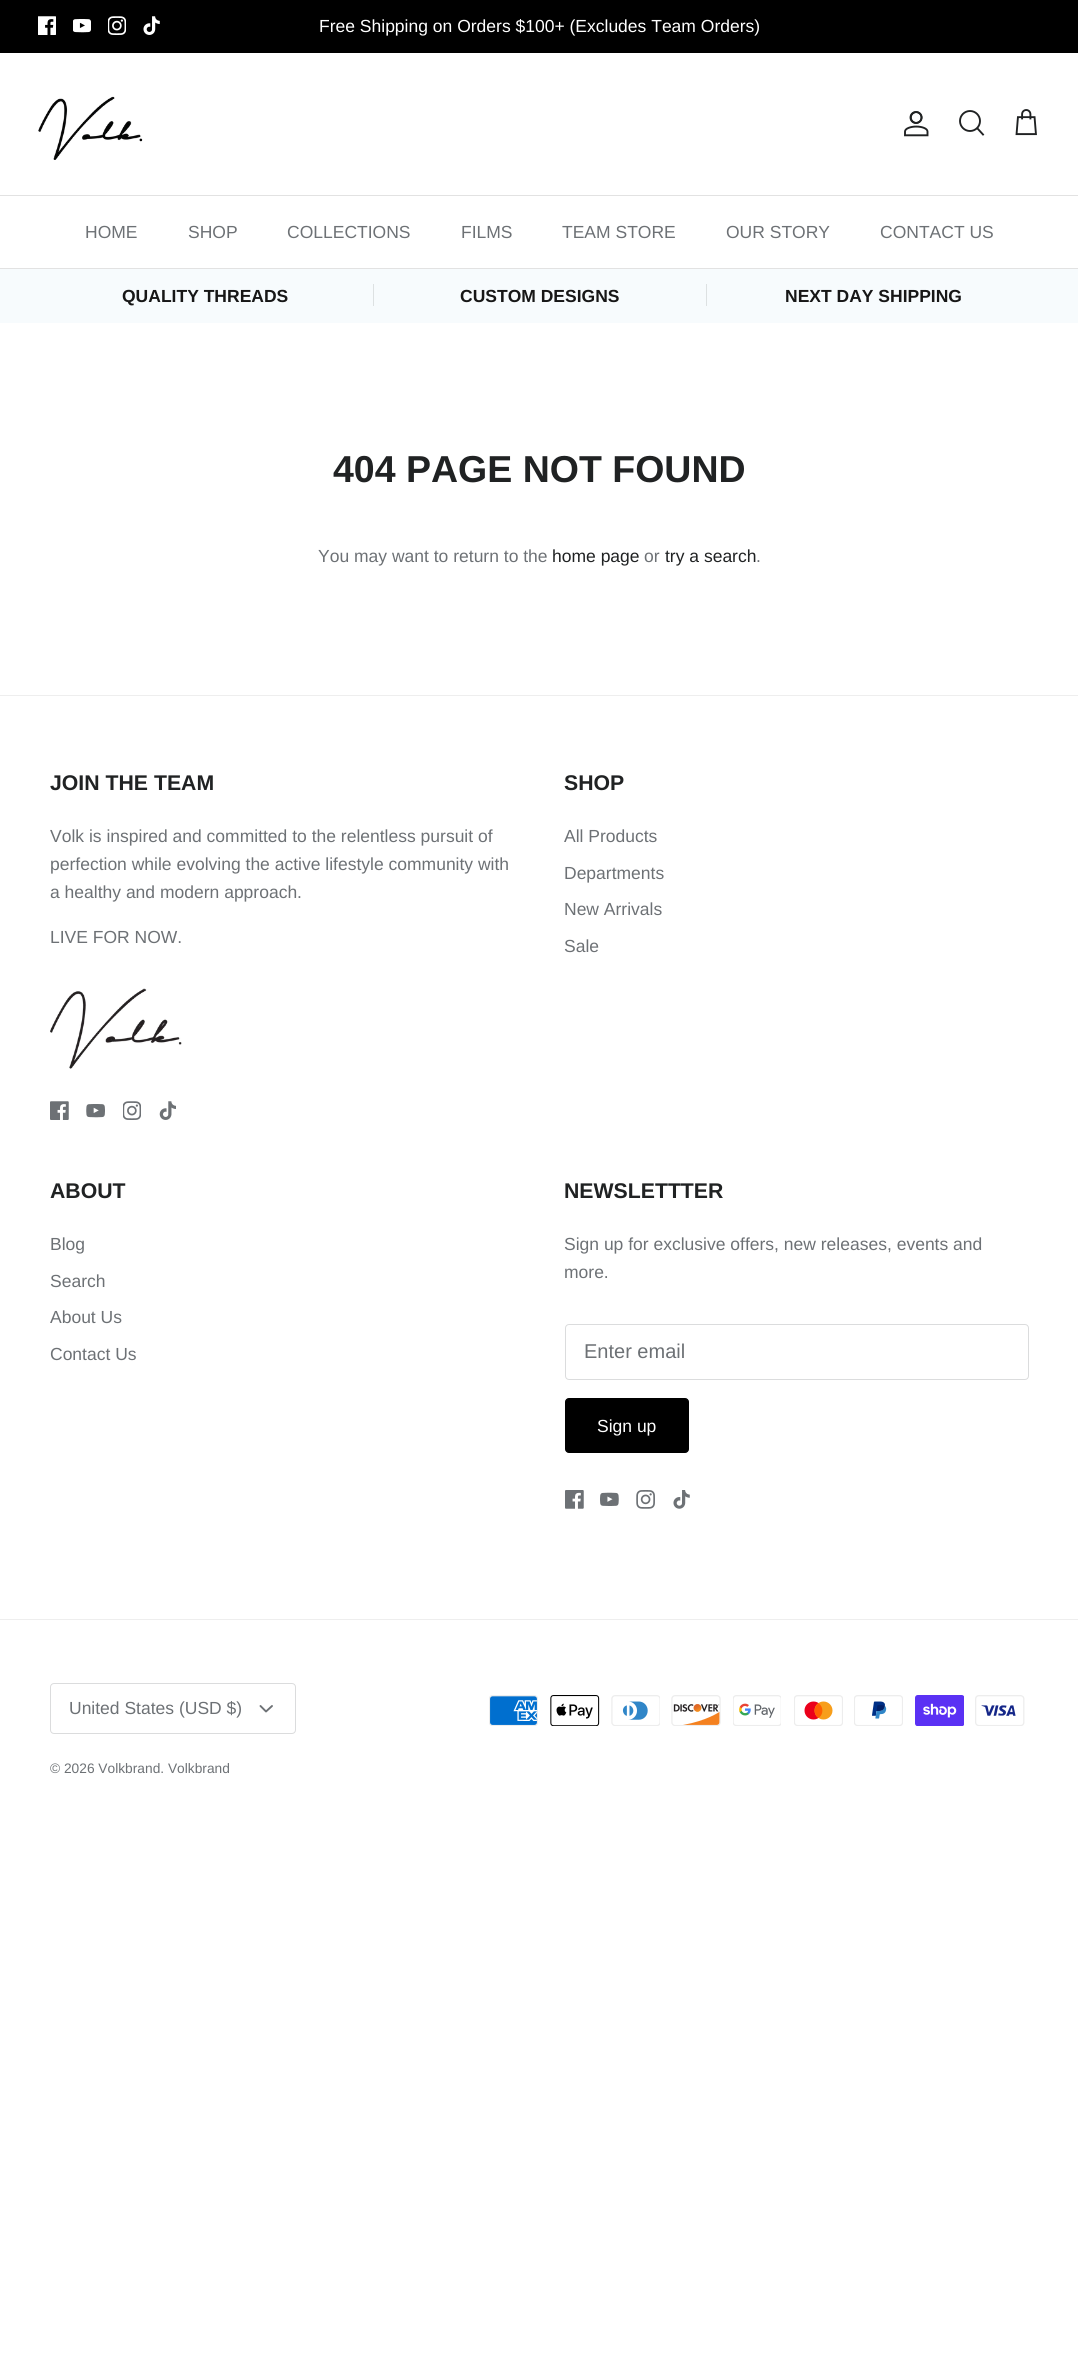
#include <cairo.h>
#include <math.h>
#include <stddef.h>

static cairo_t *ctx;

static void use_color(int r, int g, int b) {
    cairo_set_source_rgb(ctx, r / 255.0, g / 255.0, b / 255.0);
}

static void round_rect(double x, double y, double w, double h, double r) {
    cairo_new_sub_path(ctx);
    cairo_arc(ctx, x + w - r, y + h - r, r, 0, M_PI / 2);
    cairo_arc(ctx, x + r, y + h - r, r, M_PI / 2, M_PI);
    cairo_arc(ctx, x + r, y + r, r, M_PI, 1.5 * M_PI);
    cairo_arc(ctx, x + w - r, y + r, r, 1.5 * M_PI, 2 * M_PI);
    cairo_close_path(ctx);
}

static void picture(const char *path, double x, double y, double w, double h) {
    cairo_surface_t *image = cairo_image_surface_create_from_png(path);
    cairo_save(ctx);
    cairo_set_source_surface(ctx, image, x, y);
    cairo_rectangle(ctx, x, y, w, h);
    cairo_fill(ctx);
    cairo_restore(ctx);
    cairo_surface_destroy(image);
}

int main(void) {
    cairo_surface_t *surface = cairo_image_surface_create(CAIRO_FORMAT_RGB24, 1078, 2365);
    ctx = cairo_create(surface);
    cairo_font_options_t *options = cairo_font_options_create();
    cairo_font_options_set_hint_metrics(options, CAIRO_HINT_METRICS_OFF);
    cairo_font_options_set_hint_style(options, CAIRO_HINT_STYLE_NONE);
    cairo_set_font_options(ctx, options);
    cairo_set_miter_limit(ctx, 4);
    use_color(255, 255, 255);
    cairo_paint(ctx);
    use_color(0, 0, 0);
    cairo_rectangle(ctx, 0, 0, 1078, 53);
    cairo_fill(ctx);
    picture("img1.png", 38, 16, 18, 19);
    picture("img2.png", 73, 19, 18, 14);
    picture("img3.png", 108, 16, 18, 19);
    picture("img4.png", 143, 16, 17, 19);
    cairo_select_font_face(ctx, "Liberation Sans", CAIRO_FONT_SLANT_NORMAL, CAIRO_FONT_WEIGHT_NORMAL);
    cairo_set_font_size(ctx, 17.5);
    use_color(255, 255, 255);
    cairo_move_to(ctx, 319, 32);
    cairo_show_text(ctx, "Free Shipping on Orders $100+ (Excludes Team Orders)");
    use_color(226, 226, 226);
    cairo_rectangle(ctx, 0, 195, 1078, 1);
    cairo_fill(ctx);
    picture("img5.png", 38, 96, 105, 64);
    picture("img6.png", 904, 111, 25, 26);
    cairo_arc(ctx, 970, 121, 10, 0, 2 * M_PI);
    use_color(32, 34, 35);
    cairo_set_line_width(ctx, 1.9);
    cairo_stroke(ctx);
    cairo_new_path(ctx);
    cairo_move_to(ctx, 977.5, 128.5);
    cairo_line_to(ctx, 983, 134.5);
    cairo_set_line_cap(ctx, CAIRO_LINE_CAP_SQUARE);
    cairo_stroke(ctx);
    picture("img7.png", 1015, 109, 22, 27);
    use_color(226, 226, 226);
    cairo_rectangle(ctx, 0, 268, 1078, 1);
    cairo_fill(ctx);
    use_color(109, 113, 117);
    cairo_move_to(ctx, 85, 238);
    cairo_show_text(ctx, "HOME");
    cairo_move_to(ctx, 188, 238);
    cairo_show_text(ctx, "SHOP");
    cairo_move_to(ctx, 287, 238);
    cairo_show_text(ctx, "COLLECTIONS");
    cairo_move_to(ctx, 461, 238);
    cairo_show_text(ctx, "FILMS");
    cairo_move_to(ctx, 562, 238);
    cairo_show_text(ctx, "TEAM STORE");
    cairo_move_to(ctx, 726, 238);
    cairo_show_text(ctx, "OUR STORY");
    cairo_move_to(ctx, 880, 238);
    cairo_show_text(ctx, "CONTACT US");
    use_color(247, 251, 253);
    cairo_rectangle(ctx, 0, 269, 1078, 54);
    cairo_fill(ctx);
    cairo_select_font_face(ctx, "Liberation Sans", CAIRO_FONT_SLANT_NORMAL, CAIRO_FONT_WEIGHT_BOLD);
    use_color(23, 23, 23);
    cairo_move_to(ctx, 122, 302);
    cairo_show_text(ctx, "QUALITY THREADS");
    use_color(221, 225, 226);
    cairo_rectangle(ctx, 373, 284, 1, 22);
    cairo_fill(ctx);
    use_color(23, 23, 23);
    cairo_move_to(ctx, 460, 302);
    cairo_show_text(ctx, "CUSTOM DESIGNS");
    use_color(221, 225, 226);
    cairo_rectangle(ctx, 706, 284, 1, 22);
    cairo_fill(ctx);
    use_color(23, 23, 23);
    cairo_move_to(ctx, 785, 302);
    cairo_show_text(ctx, "NEXT DAY SHIPPING");
    cairo_set_font_size(ctx, 37.5);
    use_color(32, 34, 35);
    cairo_move_to(ctx, 333, 482);
    cairo_show_text(ctx, "404 PAGE NOT FOUND");
    cairo_select_font_face(ctx, "Liberation Sans", CAIRO_FONT_SLANT_NORMAL, CAIRO_FONT_WEIGHT_NORMAL);
    cairo_set_font_size(ctx, 17.5);
    use_color(109, 113, 117);
    cairo_move_to(ctx, 318, 562);
    cairo_show_text(ctx, "You may want to return to the");
    use_color(32, 34, 35);
    cairo_move_to(ctx, 552, 562);
    cairo_show_text(ctx, "home page");
    use_color(109, 113, 117);
    cairo_move_to(ctx, 644, 562);
    cairo_show_text(ctx, "or");
    use_color(32, 34, 35);
    cairo_move_to(ctx, 665, 562);
    cairo_show_text(ctx, "try a search");
    use_color(109, 113, 117);
    cairo_move_to(ctx, 756, 562);
    cairo_show_text(ctx, ".");
    use_color(238, 238, 238);
    cairo_rectangle(ctx, 0, 695, 1078, 1);
    cairo_fill(ctx);
    cairo_select_font_face(ctx, "Liberation Sans", CAIRO_FONT_SLANT_NORMAL, CAIRO_FONT_WEIGHT_BOLD);
    cairo_set_font_size(ctx, 21.25);
    use_color(32, 34, 35);
    cairo_move_to(ctx, 50, 790);
    cairo_show_text(ctx, "JOIN THE TEAM");
    cairo_select_font_face(ctx, "Liberation Sans", CAIRO_FONT_SLANT_NORMAL, CAIRO_FONT_WEIGHT_NORMAL);
    cairo_set_font_size(ctx, 17.5);
    use_color(109, 113, 117);
    cairo_move_to(ctx, 50, 842);
    cairo_show_text(ctx, "Volk is inspired and committed to the relentless pursuit of");
    cairo_move_to(ctx, 50, 870);
    cairo_show_text(ctx, "perfection while evolving the active lifestyle community with");
    cairo_move_to(ctx, 50, 898);
    cairo_show_text(ctx, "a healthy and modern approach.");
    cairo_move_to(ctx, 50, 943);
    cairo_show_text(ctx, "LIVE FOR NOW.");
    picture("img8.png", 50, 988, 132, 81);
    picture("img9.png", 50, 1101, 19, 19);
    picture("img10.png", 86, 1104, 19, 14);
    picture("img11.png", 123, 1101, 18, 19);
    picture("img12.png", 159, 1101, 17, 19);
    cairo_select_font_face(ctx, "Liberation Sans", CAIRO_FONT_SLANT_NORMAL, CAIRO_FONT_WEIGHT_BOLD);
    cairo_set_font_size(ctx, 21.25);
    use_color(32, 34, 35);
    cairo_move_to(ctx, 564, 790);
    cairo_show_text(ctx, "SHOP");
    cairo_select_font_face(ctx, "Liberation Sans", CAIRO_FONT_SLANT_NORMAL, CAIRO_FONT_WEIGHT_NORMAL);
    cairo_set_font_size(ctx, 17.5);
    use_color(109, 113, 117);
    cairo_move_to(ctx, 564, 842);
    cairo_show_text(ctx, "All Products");
    cairo_move_to(ctx, 564, 879);
    cairo_show_text(ctx, "Departments");
    cairo_move_to(ctx, 564, 915);
    cairo_show_text(ctx, "New Arrivals");
    cairo_move_to(ctx, 564, 952);
    cairo_show_text(ctx, "Sale");
    cairo_select_font_face(ctx, "Liberation Sans", CAIRO_FONT_SLANT_NORMAL, CAIRO_FONT_WEIGHT_BOLD);
    cairo_set_font_size(ctx, 21.25);
    use_color(32, 34, 35);
    cairo_move_to(ctx, 50, 1198);
    cairo_show_text(ctx, "ABOUT");
    cairo_select_font_face(ctx, "Liberation Sans", CAIRO_FONT_SLANT_NORMAL, CAIRO_FONT_WEIGHT_NORMAL);
    cairo_set_font_size(ctx, 17.5);
    use_color(109, 113, 117);
    cairo_move_to(ctx, 50, 1250);
    cairo_show_text(ctx, "Blog");
    cairo_move_to(ctx, 50, 1287);
    cairo_show_text(ctx, "Search");
    cairo_move_to(ctx, 50, 1323);
    cairo_show_text(ctx, "About Us");
    cairo_move_to(ctx, 50, 1360);
    cairo_show_text(ctx, "Contact Us");
    cairo_select_font_face(ctx, "Liberation Sans", CAIRO_FONT_SLANT_NORMAL, CAIRO_FONT_WEIGHT_BOLD);
    cairo_set_font_size(ctx, 21.25);
    use_color(32, 34, 35);
    cairo_move_to(ctx, 564, 1198);
    cairo_show_text(ctx, "NEWSLETTTER");
    cairo_select_font_face(ctx, "Liberation Sans", CAIRO_FONT_SLANT_NORMAL, CAIRO_FONT_WEIGHT_NORMAL);
    cairo_set_font_size(ctx, 17.5);
    use_color(109, 113, 117);
    cairo_move_to(ctx, 564, 1250);
    cairo_show_text(ctx, "Sign up for exclusive offers, new releases, events and");
    cairo_move_to(ctx, 564, 1278);
    cairo_show_text(ctx, "more.");
    round_rect(565.5, 1324.5, 463, 55, 3.5);
    use_color(219, 220, 221);
    cairo_set_line_width(ctx, 1);
    cairo_set_line_cap(ctx, CAIRO_LINE_CAP_BUTT);
    cairo_stroke(ctx);
    cairo_set_font_size(ctx, 20);
    use_color(109, 113, 117);
    cairo_move_to(ctx, 584, 1358);
    cairo_show_text(ctx, "Enter email");
    use_color(0, 0, 0);
    round_rect(565.5, 1398.5, 123, 54, 3.5);
    cairo_fill_preserve(ctx);
    cairo_stroke(ctx);
    cairo_set_font_size(ctx, 17.5);
    use_color(255, 255, 255);
    cairo_move_to(ctx, 597, 1432);
    cairo_show_text(ctx, "Sign up");
    picture("img13.png", 565, 1490, 19, 19);
    picture("img14.png", 600, 1492, 19, 14);
    picture("img15.png", 636, 1490, 19, 19);
    picture("img16.png", 673, 1490, 17, 19);
    use_color(238, 238, 238);
    cairo_rectangle(ctx, 0, 1619, 1078, 1);
    cairo_fill(ctx);
    round_rect(50.5, 1683.5, 245, 50, 3.5);
    use_color(219, 220, 221);
    cairo_stroke(ctx);
    use_color(109, 113, 117);
    cairo_move_to(ctx, 69, 1714);
    cairo_show_text(ctx, "United States (USD $)");
    cairo_new_path(ctx);
    cairo_move_to(ctx, 260.5, 1706);
    cairo_line_to(ctx, 266, 1711.5);
    cairo_line_to(ctx, 272, 1706);
    cairo_set_line_width(ctx, 1.9);
    cairo_set_line_cap(ctx, CAIRO_LINE_CAP_ROUND);
    cairo_set_line_join(ctx, CAIRO_LINE_JOIN_ROUND);
    cairo_stroke(ctx);
    cairo_set_font_size(ctx, 13.75);
    cairo_move_to(ctx, 50, 1773);
    cairo_show_text(ctx, "© 2026 Volkbrand. Volkbrand");
    picture("img17.png", 489, 1695, 49, 31);
    picture("img18.png", 550, 1695, 50, 31);
    picture("img19.png", 611, 1695, 49, 31);
    picture("img20.png", 671, 1695, 50, 31);
    picture("img21.png", 733, 1695, 48, 31);
    picture("img22.png", 794, 1695, 49, 31);
    picture("img23.png", 854, 1695, 49, 31);
    picture("img24.png", 915, 1695, 49, 31);
    picture("img25.png", 975, 1695, 50, 31);
    cairo_surface_write_to_png(surface, "result.png");
    cairo_font_options_destroy(options);
    cairo_destroy(ctx);
    cairo_surface_destroy(surface);
    return 0;
}
